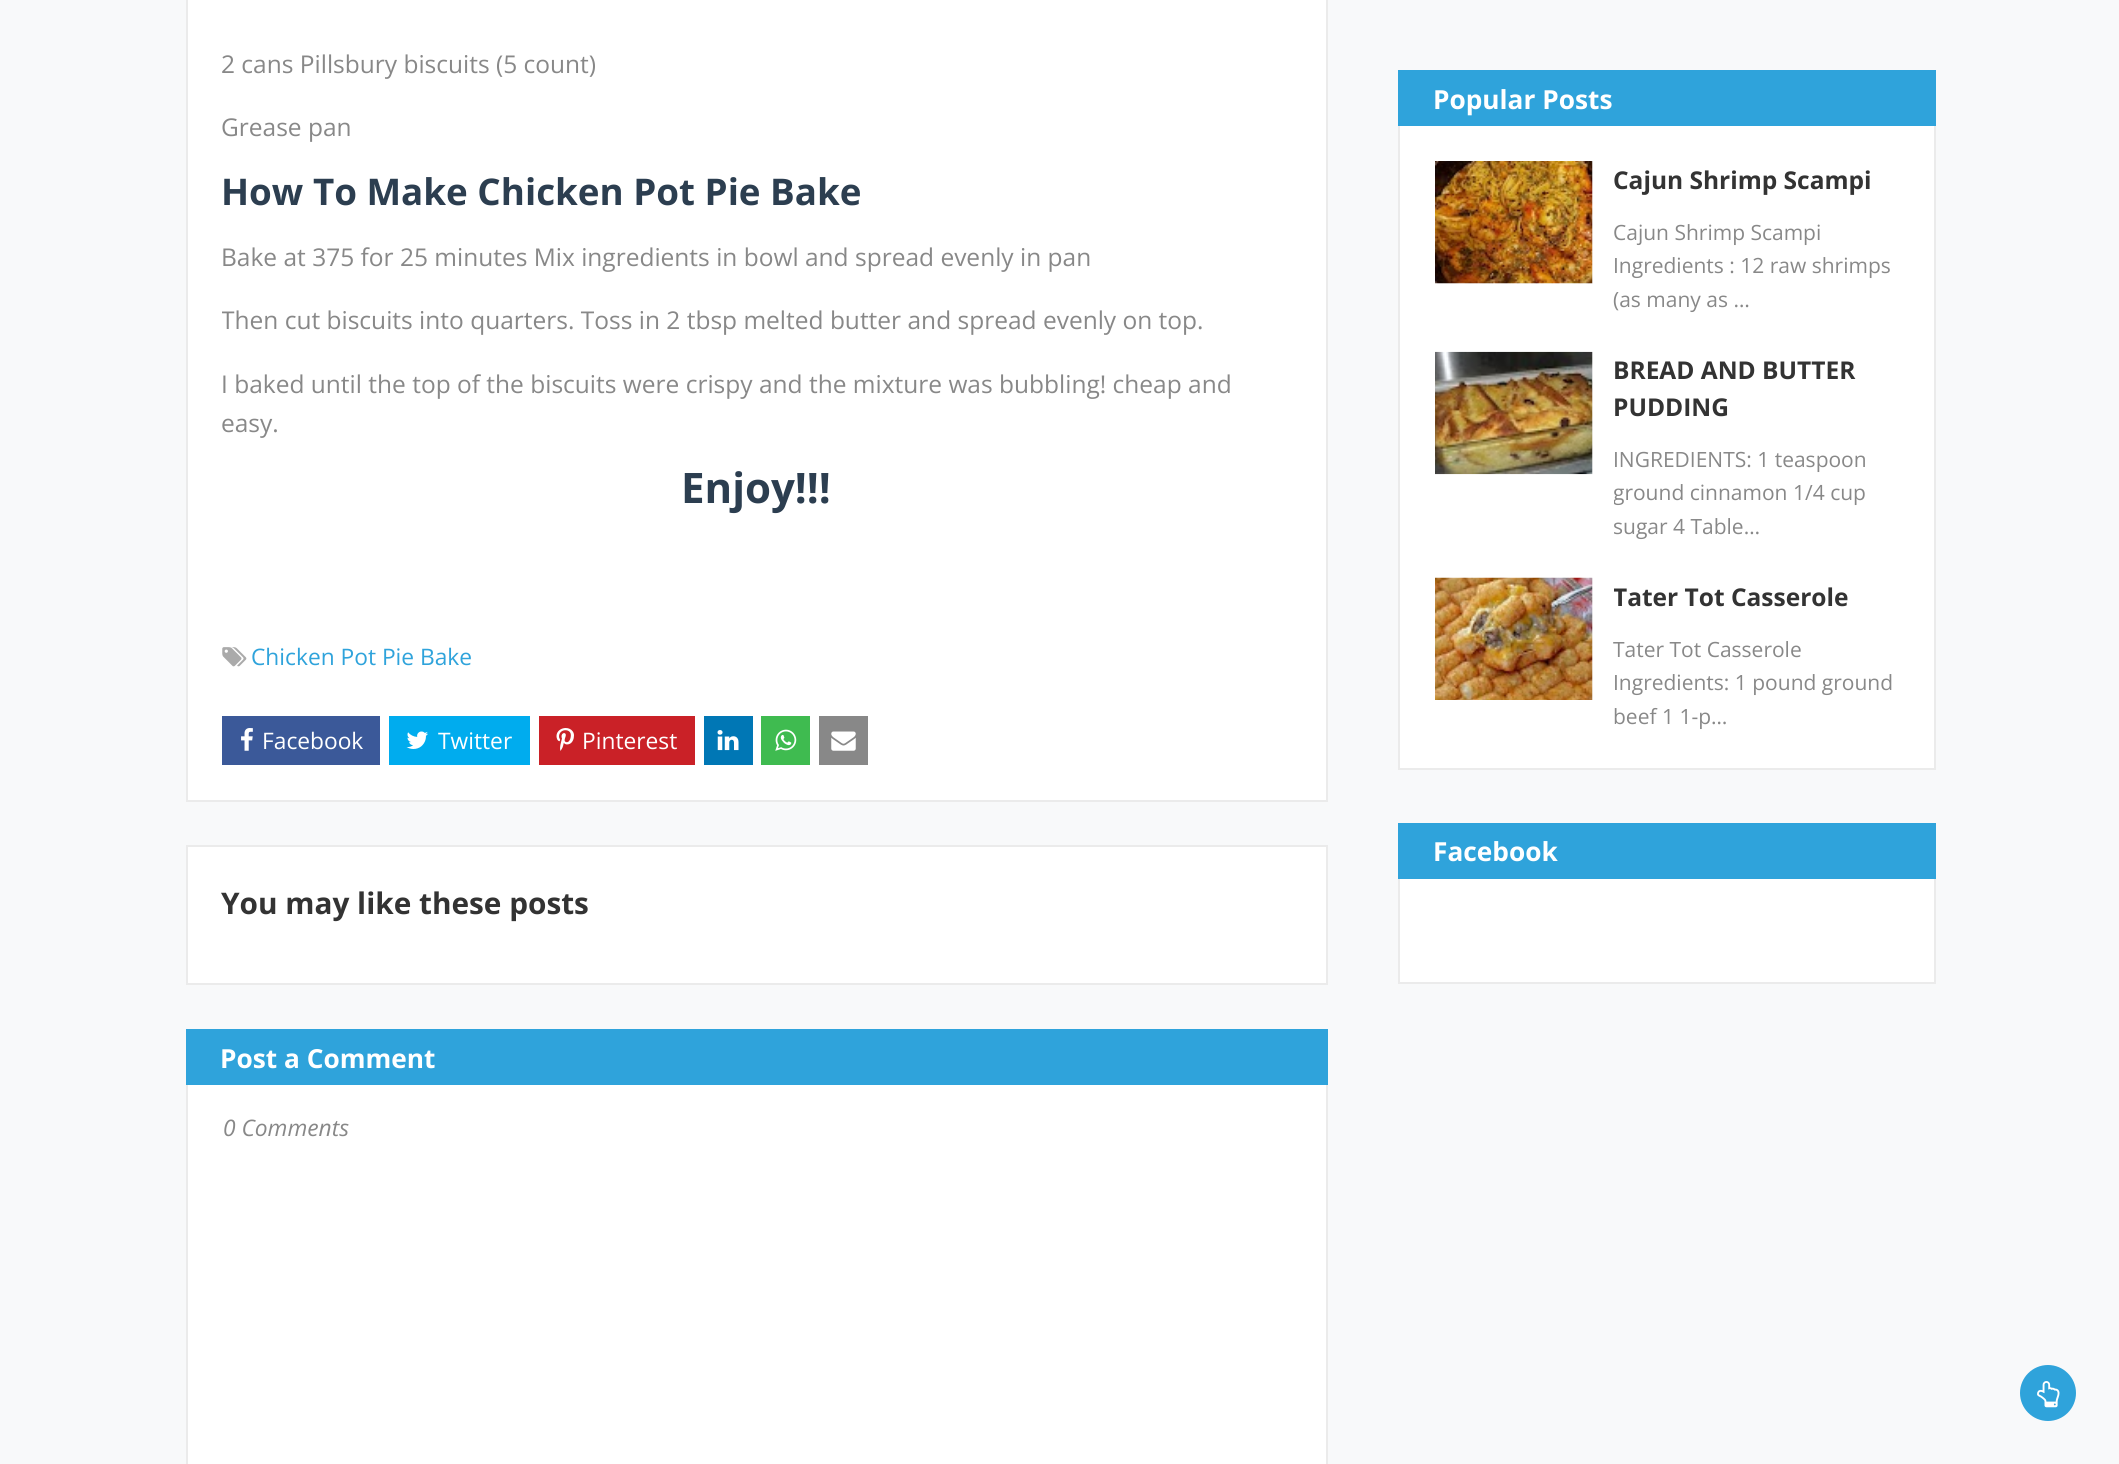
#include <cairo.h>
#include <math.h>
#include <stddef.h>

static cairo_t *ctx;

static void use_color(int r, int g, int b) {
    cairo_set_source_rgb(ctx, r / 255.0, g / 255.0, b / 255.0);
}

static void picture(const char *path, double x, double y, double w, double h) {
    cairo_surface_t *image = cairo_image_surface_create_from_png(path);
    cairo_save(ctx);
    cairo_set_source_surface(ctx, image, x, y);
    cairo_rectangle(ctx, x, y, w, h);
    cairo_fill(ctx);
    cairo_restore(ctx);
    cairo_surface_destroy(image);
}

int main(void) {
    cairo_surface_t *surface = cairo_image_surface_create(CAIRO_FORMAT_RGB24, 2119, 1464);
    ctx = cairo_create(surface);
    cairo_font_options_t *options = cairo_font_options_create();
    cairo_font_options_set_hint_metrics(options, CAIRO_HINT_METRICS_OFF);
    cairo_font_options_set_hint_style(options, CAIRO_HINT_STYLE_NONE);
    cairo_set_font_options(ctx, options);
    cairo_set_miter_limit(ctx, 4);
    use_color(248, 249, 250);
    cairo_paint(ctx);
    use_color(255, 255, 255);
    cairo_rectangle(ctx, 187, -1, 1140, 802);
    cairo_fill_preserve(ctx);
    use_color(235, 235, 235);
    cairo_stroke(ctx);
    cairo_select_font_face(ctx, "Open Sans", CAIRO_FONT_SLANT_NORMAL, CAIRO_FONT_WEIGHT_NORMAL);
    cairo_set_font_size(ctx, 24.5);
    use_color(136, 136, 136);
    cairo_move_to(ctx, 221, 73);
    cairo_show_text(ctx, "2 cans Pillsbury biscuits (5 count)");
    cairo_move_to(ctx, 221, 136);
    cairo_show_text(ctx, "Grease pan");
    cairo_select_font_face(ctx, "Open Sans", CAIRO_FONT_SLANT_NORMAL, CAIRO_FONT_WEIGHT_BOLD);
    cairo_set_font_size(ctx, 36.75);
    use_color(44, 62, 80);
    cairo_move_to(ctx, 221, 205);
    cairo_show_text(ctx, "How To Make Chicken Pot Pie Bake");
    cairo_select_font_face(ctx, "Open Sans", CAIRO_FONT_SLANT_NORMAL, CAIRO_FONT_WEIGHT_NORMAL);
    cairo_set_font_size(ctx, 24.5);
    use_color(136, 136, 136);
    cairo_move_to(ctx, 221, 266);
    cairo_show_text(ctx, "Bake at 375 for 25 minutes Mix ingredients in bowl and spread evenly in pan");
    cairo_save(ctx);
    cairo_rectangle(ctx, 222, 0, 1070, 597);
    cairo_clip(ctx);
    cairo_move_to(ctx, 221, 329);
    cairo_show_text(ctx, "Then cut biscuits into quarters. Toss in 2 tbsp melted butter and spread evenly on top.");
    cairo_restore(ctx);
    cairo_move_to(ctx, 221, 393);
    cairo_show_text(ctx, "I baked until the top of the biscuits were crispy and the mixture was bubbling! cheap and");
    cairo_move_to(ctx, 221, 432);
    cairo_show_text(ctx, "easy.");
    cairo_select_font_face(ctx, "Open Sans", CAIRO_FONT_SLANT_NORMAL, CAIRO_FONT_WEIGHT_BOLD);
    cairo_set_font_size(ctx, 42);
    use_color(44, 62, 80);
    cairo_move_to(ctx, 681, 503);
    cairo_show_text(ctx, "Enjoy!!!");
    picture("img1.png", 222, 647, 25, 20);
    cairo_select_font_face(ctx, "Open Sans", CAIRO_FONT_SLANT_NORMAL, CAIRO_FONT_WEIGHT_NORMAL);
    cairo_set_font_size(ctx, 22.75);
    use_color(47, 163, 219);
    cairo_move_to(ctx, 251, 665);
    cairo_show_text(ctx, "Chicken Pot Pie Bake");
    use_color(59, 89, 153);
    cairo_rectangle(ctx, 222, 716, 158, 49);
    cairo_fill(ctx);
    picture("img2.png", 241, 728, 12, 23);
    use_color(255, 255, 255);
    cairo_move_to(ctx, 262, 749);
    cairo_show_text(ctx, "Facebook");
    use_color(0, 172, 238);
    cairo_rectangle(ctx, 389, 716, 141, 49);
    cairo_fill(ctx);
    picture("img3.png", 406, 731, 22, 18);
    use_color(255, 255, 255);
    cairo_move_to(ctx, 438, 749);
    cairo_show_text(ctx, "Twitter");
    use_color(202, 33, 39);
    cairo_rectangle(ctx, 539, 716, 156, 49);
    cairo_fill(ctx);
    picture("img4.png", 556, 728, 18, 23);
    use_color(255, 255, 255);
    cairo_move_to(ctx, 582, 749);
    cairo_show_text(ctx, "Pinterest");
    use_color(0, 119, 181);
    cairo_rectangle(ctx, 704, 716, 49, 49);
    cairo_fill(ctx);
    picture("img5.png", 717, 730, 22, 21);
    use_color(63, 187, 80);
    cairo_rectangle(ctx, 761, 716, 49, 49);
    cairo_fill(ctx);
    picture("img6.png", 775, 729, 22, 22);
    use_color(136, 136, 136);
    cairo_rectangle(ctx, 819, 716, 49, 49);
    cairo_fill(ctx);
    picture("img7.png", 831, 731, 25, 20);
    use_color(255, 255, 255);
    cairo_rectangle(ctx, 187, 846, 1140, 138);
    cairo_fill_preserve(ctx);
    use_color(235, 235, 235);
    cairo_stroke(ctx);
    cairo_select_font_face(ctx, "Open Sans", CAIRO_FONT_SLANT_NORMAL, CAIRO_FONT_WEIGHT_BOLD);
    cairo_set_font_size(ctx, 29.75);
    use_color(51, 51, 51);
    cairo_move_to(ctx, 221, 914);
    cairo_show_text(ctx, "You may like these posts");
    use_color(255, 255, 255);
    cairo_rectangle(ctx, 188, 1085, 1138, 379);
    cairo_fill(ctx);
    cairo_rectangle(ctx, 187, 1030, 1140, 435);
    use_color(235, 235, 235);
    cairo_stroke(ctx);
    use_color(47, 163, 219);
    cairo_rectangle(ctx, 186, 1029, 1142, 56);
    cairo_fill(ctx);
    cairo_set_font_size(ctx, 26.25);
    use_color(255, 255, 255);
    cairo_move_to(ctx, 220, 1068);
    cairo_show_text(ctx, "Post a Comment");
    cairo_select_font_face(ctx, "Open Sans", CAIRO_FONT_SLANT_ITALIC, CAIRO_FONT_WEIGHT_NORMAL);
    cairo_set_font_size(ctx, 22.75);
    use_color(136, 136, 136);
    cairo_move_to(ctx, 223, 1136);
    cairo_show_text(ctx, "0 Comments");
    use_color(255, 255, 255);
    cairo_rectangle(ctx, 1400, 126, 534, 642);
    cairo_fill(ctx);
    use_color(47, 163, 219);
    cairo_rectangle(ctx, 1398, 70, 538, 56);
    cairo_fill(ctx);
    cairo_select_font_face(ctx, "Open Sans", CAIRO_FONT_SLANT_NORMAL, CAIRO_FONT_WEIGHT_BOLD);
    cairo_set_font_size(ctx, 26.25);
    use_color(255, 255, 255);
    cairo_move_to(ctx, 1433, 109);
    cairo_show_text(ctx, "Popular Posts");
    use_color(235, 235, 235);
    cairo_rectangle(ctx, 1934, 126, 2, 644);
    cairo_fill(ctx);
    cairo_rectangle(ctx, 1398, 768, 538, 2);
    cairo_fill(ctx);
    cairo_rectangle(ctx, 1398, 126, 2, 644);
    cairo_fill(ctx);
    use_color(249, 249, 249);
    cairo_rectangle(ctx, 1435, 161, 158, 123);
    cairo_fill(ctx);
    picture("img8.png", 1435, 161, 158, 123);
    cairo_set_font_size(ctx, 24.5);
    use_color(51, 51, 51);
    cairo_move_to(ctx, 1613, 189);
    cairo_show_text(ctx, "Cajun Shrimp Scampi");
    cairo_select_font_face(ctx, "Open Sans", CAIRO_FONT_SLANT_NORMAL, CAIRO_FONT_WEIGHT_NORMAL);
    cairo_set_font_size(ctx, 21);
    use_color(136, 136, 136);
    cairo_move_to(ctx, 1613, 240);
    cairo_show_text(ctx, "Cajun Shrimp Scampi");
    cairo_move_to(ctx, 1613, 273);
    cairo_show_text(ctx, "Ingredients : 12 raw shrimps");
    cairo_move_to(ctx, 1613, 307);
    cairo_show_text(ctx, "(as many as …");
    use_color(249, 249, 249);
    cairo_rectangle(ctx, 1592, 352, 1, 122);
    cairo_fill(ctx);
    picture("img9.png", 1435, 351, 158, 124);
    cairo_select_font_face(ctx, "Open Sans", CAIRO_FONT_SLANT_NORMAL, CAIRO_FONT_WEIGHT_BOLD);
    cairo_set_font_size(ctx, 24.5);
    use_color(51, 51, 51);
    cairo_move_to(ctx, 1613, 379);
    cairo_show_text(ctx, "BREAD AND BUTTER");
    cairo_move_to(ctx, 1613, 416);
    cairo_show_text(ctx, "PUDDING");
    cairo_select_font_face(ctx, "Open Sans", CAIRO_FONT_SLANT_NORMAL, CAIRO_FONT_WEIGHT_NORMAL);
    cairo_set_font_size(ctx, 21);
    use_color(136, 136, 136);
    cairo_move_to(ctx, 1613, 467);
    cairo_show_text(ctx, "INGREDIENTS: 1 teaspoon");
    cairo_save(ctx);
    cairo_rectangle(ctx, 1614, 443, 285, 100);
    cairo_clip(ctx);
    cairo_move_to(ctx, 1613, 500);
    cairo_show_text(ctx, "ground cinnamon");
    cairo_restore(ctx);
    cairo_move_to(ctx, 1793, 500);
    cairo_show_text(ctx, "1/4 cup");
    cairo_move_to(ctx, 1613, 534);
    cairo_show_text(ctx, "sugar 4 Table…");
    use_color(249, 249, 249);
    cairo_rectangle(ctx, 1592, 578, 1, 122);
    cairo_fill(ctx);
    picture("img10.png", 1435, 577, 158, 123);
    cairo_save(ctx);
    cairo_rectangle(ctx, 1614, 578, 285, 155);
    cairo_clip(ctx);
    cairo_select_font_face(ctx, "Open Sans", CAIRO_FONT_SLANT_NORMAL, CAIRO_FONT_WEIGHT_BOLD);
    cairo_set_font_size(ctx, 24.5);
    use_color(51, 51, 51);
    cairo_move_to(ctx, 1613, 606);
    cairo_show_text(ctx, "Tater Tot Casserole");
    cairo_restore(ctx);
    use_color(136, 136, 136);
    cairo_move_to(ctx, 1613, 657);
    cairo_show_text(ctx, "Tater Tot Casserole");
    cairo_move_to(ctx, 1613, 690);
    cairo_show_text(ctx, "Ingredients: 1 pound ground");
    cairo_move_to(ctx, 1613, 724);
    cairo_show_text(ctx, "beef 1 1-p…");
    use_color(255, 255, 255);
    cairo_rectangle(ctx, 1400, 879, 534, 103);
    cairo_fill(ctx);
    use_color(47, 163, 219);
    cairo_rectangle(ctx, 1398, 823, 538, 56);
    cairo_fill(ctx);
    cairo_select_font_face(ctx, "Open Sans", CAIRO_FONT_SLANT_NORMAL, CAIRO_FONT_WEIGHT_BOLD);
    cairo_set_font_size(ctx, 26.25);
    use_color(255, 255, 255);
    cairo_move_to(ctx, 1433, 861);
    cairo_show_text(ctx, "Facebook");
    use_color(235, 235, 235);
    cairo_rectangle(ctx, 1934, 879, 2, 105);
    cairo_fill(ctx);
    cairo_rectangle(ctx, 1398, 982, 538, 2);
    cairo_fill(ctx);
    cairo_rectangle(ctx, 1398, 879, 2, 105);
    cairo_fill(ctx);
    use_color(47, 163, 219);
    cairo_arc(ctx, 2048, 1393, 28, 0, 2 * M_PI);
    cairo_fill(ctx);
    picture("img11.png", 2037, 1381, 23, 27);
    cairo_surface_write_to_png(surface, "result.png");
    cairo_font_options_destroy(options);
    cairo_destroy(ctx);
    cairo_surface_destroy(surface);
    return 0;
}
